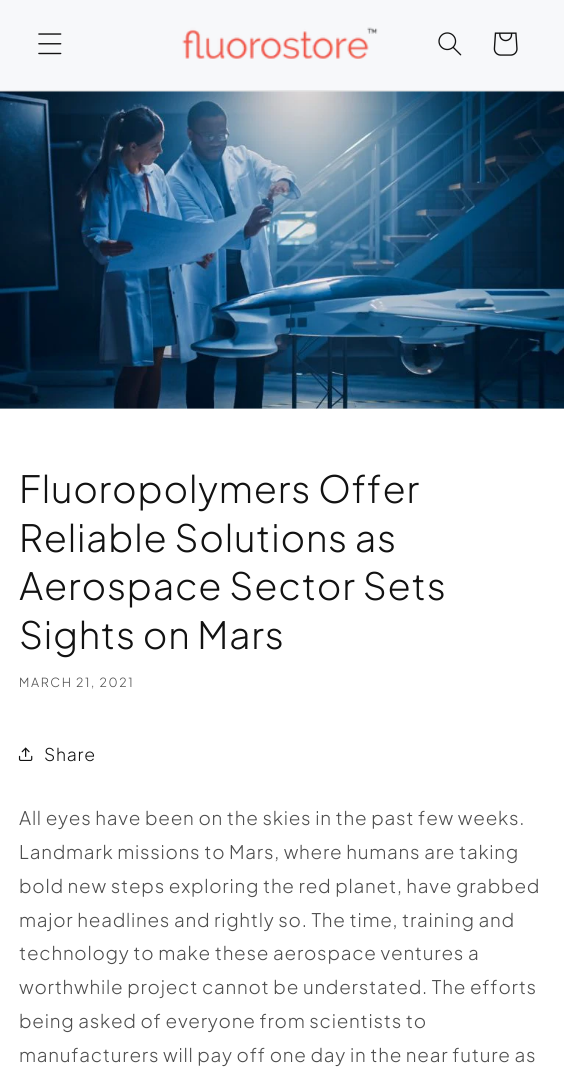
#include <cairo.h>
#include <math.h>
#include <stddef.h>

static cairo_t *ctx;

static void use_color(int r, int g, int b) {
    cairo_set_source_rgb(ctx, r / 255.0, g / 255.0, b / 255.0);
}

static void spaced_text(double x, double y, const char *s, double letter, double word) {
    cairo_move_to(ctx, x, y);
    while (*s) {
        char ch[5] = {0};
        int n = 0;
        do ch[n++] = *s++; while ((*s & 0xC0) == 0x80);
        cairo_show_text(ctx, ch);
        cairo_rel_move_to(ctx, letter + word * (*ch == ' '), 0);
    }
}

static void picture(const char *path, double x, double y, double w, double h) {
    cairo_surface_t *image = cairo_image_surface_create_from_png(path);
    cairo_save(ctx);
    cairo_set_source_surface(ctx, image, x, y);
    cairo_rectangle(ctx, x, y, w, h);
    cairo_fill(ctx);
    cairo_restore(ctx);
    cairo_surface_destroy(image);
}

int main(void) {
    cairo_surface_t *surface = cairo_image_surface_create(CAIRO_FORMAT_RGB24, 564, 1082);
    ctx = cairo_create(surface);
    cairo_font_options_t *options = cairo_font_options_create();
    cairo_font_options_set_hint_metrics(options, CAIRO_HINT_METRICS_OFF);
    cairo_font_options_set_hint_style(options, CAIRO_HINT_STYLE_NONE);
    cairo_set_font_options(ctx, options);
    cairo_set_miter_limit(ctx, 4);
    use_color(255, 255, 255);
    cairo_paint(ctx);
    use_color(247, 248, 250);
    cairo_rectangle(ctx, 0, 0, 564, 90);
    cairo_fill(ctx);
    use_color(229, 230, 231);
    cairo_rectangle(ctx, 0, 90, 564, 1);
    cairo_fill(ctx);
    picture("img1.png", 38, 33, 24, 22);
    picture("img2.png", 182, 27, 196, 32);
    picture("img3.png", 438, 32, 24, 24);
    picture("img4.png", 493, 32, 25, 24);
    use_color(232, 232, 232);
    cairo_rectangle(ctx, 0, 91, 564, 318);
    cairo_fill(ctx);
    picture("img5.png", 0, 91, 564, 318);
    cairo_select_font_face(ctx, "Plus Jakarta Sans Light", CAIRO_FONT_SLANT_NORMAL, CAIRO_FONT_WEIGHT_NORMAL);
    cairo_set_font_size(ctx, 37.5);
    use_color(18, 18, 18);
    spaced_text(19, 503, "Fluoropolymers Offer", 0.75, 0);
    spaced_text(19, 552, "Reliable Solutions as", 0.75, 0);
    spaced_text(19, 600, "Aerospace Sector Sets", 0.75, 0);
    spaced_text(19, 649, "Sights on Mars", 0.75, 0);
    cairo_set_font_size(ctx, 12.5);
    use_color(77, 77, 77);
    spaced_text(19, 687, "MARCH 21, 2021", 1.6, 0);
    picture("img6.png", 18, 747, 15, 14);
    cairo_set_font_size(ctx, 17.5);
    use_color(18, 18, 18);
    spaced_text(44, 761, "Share", 0.75, 0);
    cairo_set_font_size(ctx, 18.75);
    use_color(77, 77, 77);
    spaced_text(19, 825, "All eyes have been on the skies in the past few weeks.", 0.75, 0);
    spaced_text(19, 859, "Landmark missions to Mars, where humans are taking", 0.75, 0);
    spaced_text(19, 893, "bold new steps exploring the red planet, have grabbed", 0.75, 0);
    spaced_text(19, 927, "major headlines and rightly so. The time, training and", 0.75, 0);
    spaced_text(19, 960, "technology to make these aerospace ventures a", 0.75, 0);
    spaced_text(19, 994, "worthwhile project cannot be understated. The efforts", 0.75, 0);
    spaced_text(19, 1028, "being asked of everyone from scientists to", 0.75, 0);
    spaced_text(19, 1062, "manufacturers will pay off one day in the near future as", 0.75, 0);
    cairo_surface_write_to_png(surface, "result.png");
    cairo_font_options_destroy(options);
    cairo_destroy(ctx);
    cairo_surface_destroy(surface);
    return 0;
}
